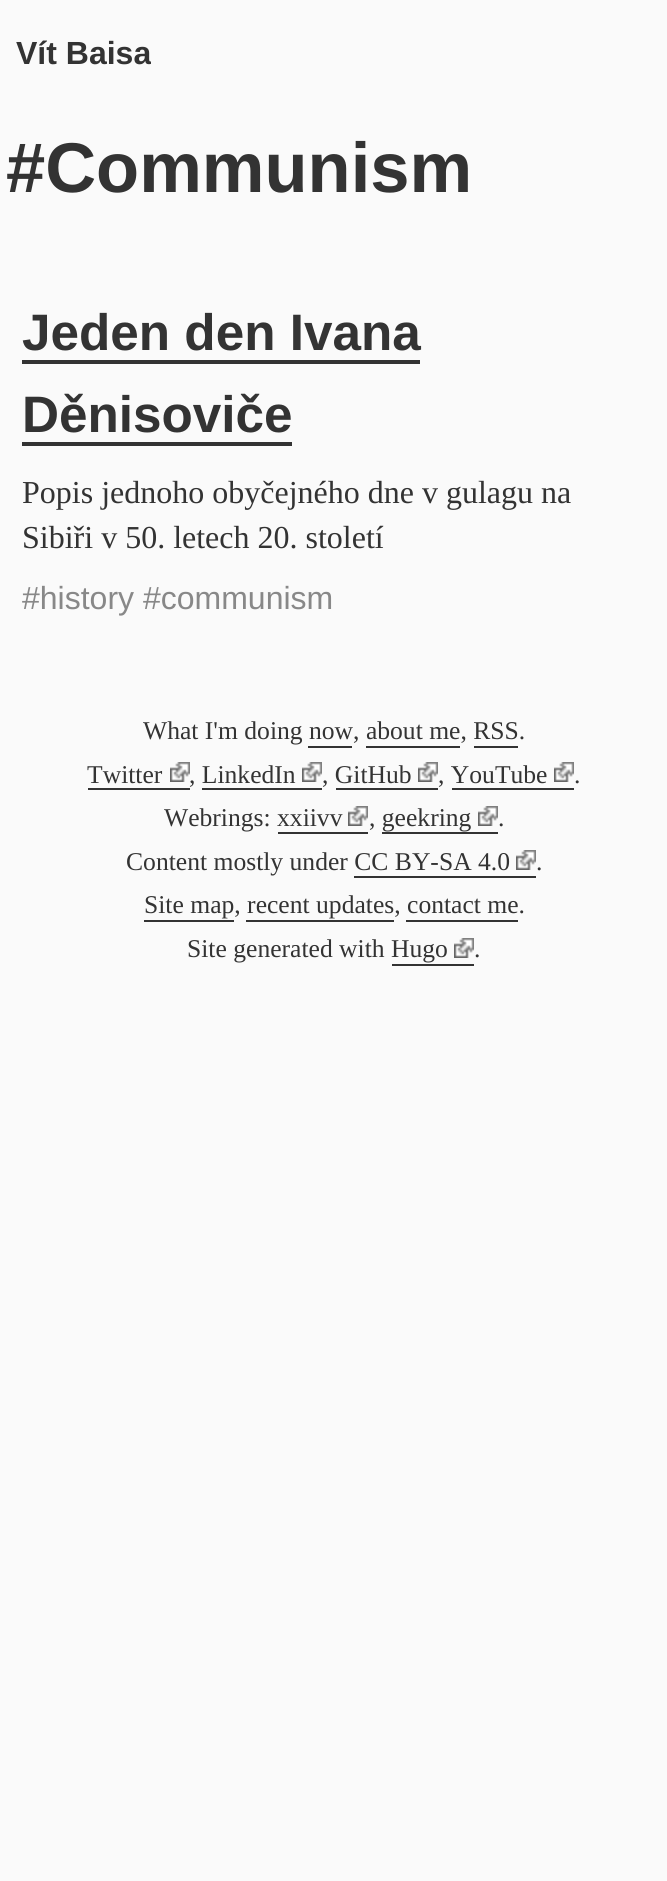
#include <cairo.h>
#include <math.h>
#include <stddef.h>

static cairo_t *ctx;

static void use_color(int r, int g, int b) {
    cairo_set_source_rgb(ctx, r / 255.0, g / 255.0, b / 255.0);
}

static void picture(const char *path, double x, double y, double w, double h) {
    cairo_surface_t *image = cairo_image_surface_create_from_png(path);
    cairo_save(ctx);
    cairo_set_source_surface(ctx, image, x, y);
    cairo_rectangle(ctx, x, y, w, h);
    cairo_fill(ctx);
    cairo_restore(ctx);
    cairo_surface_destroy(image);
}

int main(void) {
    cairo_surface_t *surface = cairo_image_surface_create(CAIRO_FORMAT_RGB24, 667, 1881);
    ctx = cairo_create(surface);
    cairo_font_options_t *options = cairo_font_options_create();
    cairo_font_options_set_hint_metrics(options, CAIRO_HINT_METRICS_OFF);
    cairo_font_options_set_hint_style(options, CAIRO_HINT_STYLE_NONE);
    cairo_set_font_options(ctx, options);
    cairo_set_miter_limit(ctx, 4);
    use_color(250, 250, 250);
    cairo_paint(ctx);
    cairo_select_font_face(ctx, "Liberation Sans", CAIRO_FONT_SLANT_NORMAL, CAIRO_FONT_WEIGHT_BOLD);
    cairo_set_font_size(ctx, 32);
    use_color(51, 51, 51);
    cairo_move_to(ctx, 16, 64);
    cairo_show_text(ctx, "Vít Baisa");
    cairo_set_font_size(ctx, 70.5);
    cairo_move_to(ctx, 6, 192);
    cairo_show_text(ctx, "#Communism");
    cairo_set_font_size(ctx, 51.25);
    cairo_move_to(ctx, 22, 350);
    cairo_show_text(ctx, "Jeden den Ivana");
    cairo_rectangle(ctx, 22, 360, 398, 4);
    cairo_fill(ctx);
    cairo_move_to(ctx, 22, 432);
    cairo_show_text(ctx, "Děnisoviče");
    cairo_rectangle(ctx, 22, 442, 270, 4);
    cairo_fill(ctx);
    cairo_select_font_face(ctx, "Liberation Serif", CAIRO_FONT_SLANT_NORMAL, CAIRO_FONT_WEIGHT_NORMAL);
    cairo_set_font_size(ctx, 32);
    cairo_move_to(ctx, 22, 503);
    cairo_show_text(ctx, "Popis jednoho obyčejného dne v gulagu na");
    cairo_move_to(ctx, 22, 548);
    cairo_show_text(ctx, "Sibiři v 50. letech 20. století");
    cairo_select_font_face(ctx, "Liberation Sans", CAIRO_FONT_SLANT_NORMAL, CAIRO_FONT_WEIGHT_NORMAL);
    use_color(136, 136, 136);
    cairo_move_to(ctx, 22, 609);
    cairo_show_text(ctx, "#history #communism");
    cairo_select_font_face(ctx, "Liberation Serif", CAIRO_FONT_SLANT_NORMAL, CAIRO_FONT_WEIGHT_NORMAL);
    cairo_set_font_size(ctx, 25.6);
    use_color(51, 51, 51);
    cairo_move_to(ctx, 143, 739);
    cairo_show_text(ctx, "What I'm doing now, about me, RSS.");
    cairo_rectangle(ctx, 308, 746, 44, 2);
    cairo_fill(ctx);
    cairo_rectangle(ctx, 366, 746, 94, 2);
    cairo_fill(ctx);
    cairo_rectangle(ctx, 474, 746, 44, 2);
    cairo_fill(ctx);
    cairo_move_to(ctx, 87, 783);
    cairo_show_text(ctx, "Twitter");
    cairo_rectangle(ctx, 88, 788, 102, 2);
    cairo_fill(ctx);
    picture("img1.png", 170, 762, 20, 20);
    cairo_move_to(ctx, 189, 783);
    cairo_show_text(ctx, ", LinkedIn");
    picture("img1.png", 302, 762, 20, 20);
    cairo_move_to(ctx, 322, 783);
    cairo_show_text(ctx, ", GitHub");
    picture("img1.png", 418, 762, 20, 20);
    cairo_move_to(ctx, 438, 783);
    cairo_show_text(ctx, ", YouTube");
    picture("img1.png", 554, 762, 20, 20);
    cairo_move_to(ctx, 574, 783);
    cairo_show_text(ctx, ".");
    cairo_rectangle(ctx, 202, 788, 120, 2);
    cairo_fill(ctx);
    cairo_rectangle(ctx, 336, 788, 102, 2);
    cairo_fill(ctx);
    cairo_rectangle(ctx, 452, 788, 122, 2);
    cairo_fill(ctx);
    cairo_move_to(ctx, 164, 826);
    cairo_show_text(ctx, "Webrings: xxiivv");
    picture("img1.png", 348, 806, 20, 20);
    cairo_move_to(ctx, 369, 826);
    cairo_show_text(ctx, ", geekring");
    picture("img1.png", 478, 806, 20, 20);
    cairo_move_to(ctx, 498, 826);
    cairo_show_text(ctx, ".");
    cairo_rectangle(ctx, 278, 832, 90, 2);
    cairo_fill(ctx);
    cairo_rectangle(ctx, 382, 832, 116, 2);
    cairo_fill(ctx);
    cairo_move_to(ctx, 126, 870);
    cairo_show_text(ctx, "Content mostly under CC BY-SA 4.0");
    picture("img1.png", 516, 850, 20, 20);
    cairo_move_to(ctx, 536, 870);
    cairo_show_text(ctx, ".");
    cairo_rectangle(ctx, 354, 876, 182, 2);
    cairo_fill(ctx);
    cairo_move_to(ctx, 144, 913);
    cairo_show_text(ctx, "Site map, recent updates, contact me.");
    cairo_rectangle(ctx, 144, 920, 90, 2);
    cairo_fill(ctx);
    cairo_rectangle(ctx, 246, 920, 148, 2);
    cairo_fill(ctx);
    cairo_rectangle(ctx, 406, 920, 112, 2);
    cairo_fill(ctx);
    cairo_move_to(ctx, 187, 957);
    cairo_show_text(ctx, "Site generated with Hugo");
    picture("img1.png", 454, 938, 20, 20);
    cairo_move_to(ctx, 474, 957);
    cairo_show_text(ctx, ".");
    cairo_rectangle(ctx, 392, 964, 82, 2);
    cairo_fill(ctx);
    cairo_surface_write_to_png(surface, "result.png");
    cairo_font_options_destroy(options);
    cairo_destroy(ctx);
    cairo_surface_destroy(surface);
    return 0;
}
